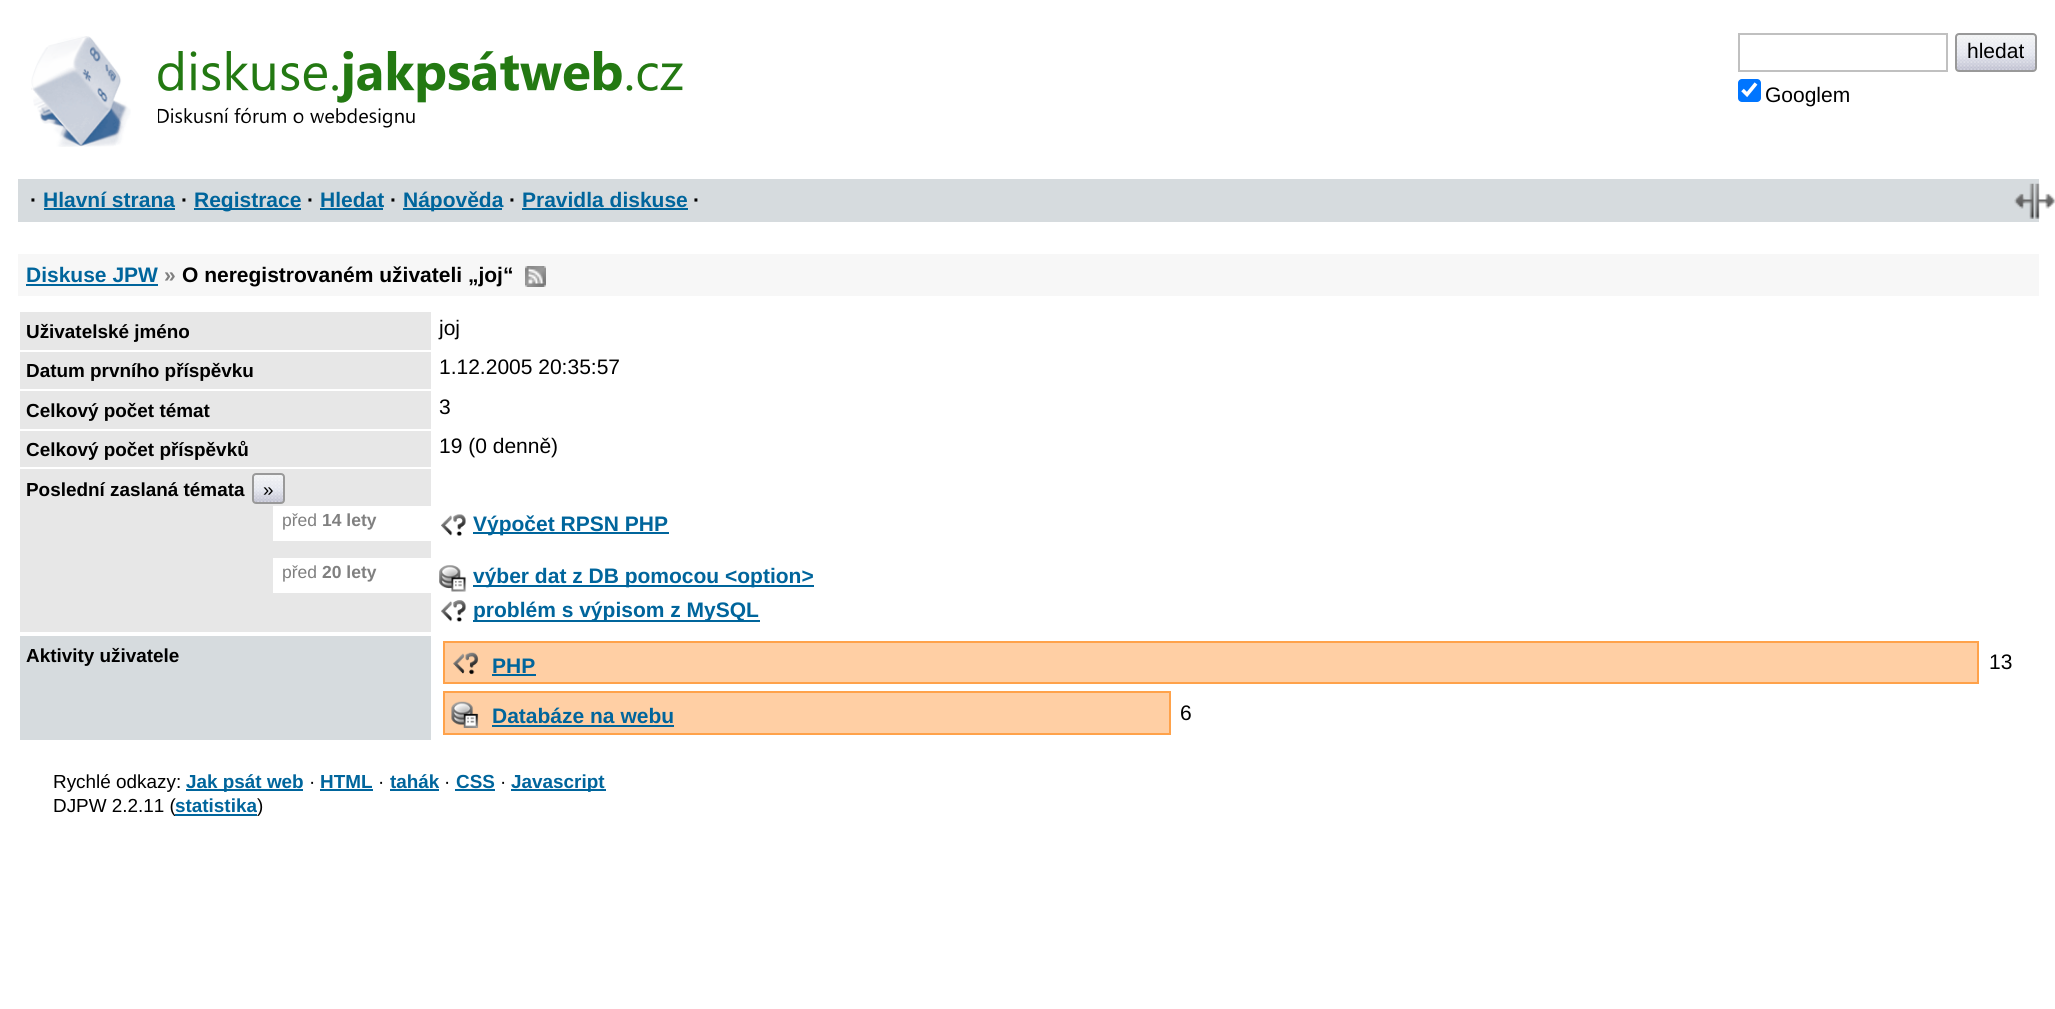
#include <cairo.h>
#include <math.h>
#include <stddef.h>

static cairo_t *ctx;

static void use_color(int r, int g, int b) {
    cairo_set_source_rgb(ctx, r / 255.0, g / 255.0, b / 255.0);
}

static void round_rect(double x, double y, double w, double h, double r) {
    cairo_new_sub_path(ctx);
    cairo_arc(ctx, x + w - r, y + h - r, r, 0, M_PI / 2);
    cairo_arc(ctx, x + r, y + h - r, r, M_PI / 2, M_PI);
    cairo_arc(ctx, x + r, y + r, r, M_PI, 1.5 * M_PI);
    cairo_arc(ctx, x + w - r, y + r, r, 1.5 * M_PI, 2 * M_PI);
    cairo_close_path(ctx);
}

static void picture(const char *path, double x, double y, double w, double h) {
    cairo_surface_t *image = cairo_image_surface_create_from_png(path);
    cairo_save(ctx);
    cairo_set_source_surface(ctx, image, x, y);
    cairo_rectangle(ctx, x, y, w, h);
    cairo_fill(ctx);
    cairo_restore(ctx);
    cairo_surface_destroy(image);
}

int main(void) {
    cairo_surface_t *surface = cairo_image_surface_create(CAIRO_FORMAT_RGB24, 2055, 1009);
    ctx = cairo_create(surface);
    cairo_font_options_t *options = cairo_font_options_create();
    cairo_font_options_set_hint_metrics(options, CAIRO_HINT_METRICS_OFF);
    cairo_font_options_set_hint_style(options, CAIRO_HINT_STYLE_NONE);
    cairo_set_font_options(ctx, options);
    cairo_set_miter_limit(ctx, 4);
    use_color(255, 255, 255);
    cairo_paint(ctx);
    picture("img1.png", 31, 36, 100, 111);
    picture("img2.png", 158, 51, 525, 77);
    cairo_rectangle(ctx, 1739, 34, 208, 37);
    use_color(192, 192, 192);
    cairo_stroke(ctx);
    use_color(214, 219, 222);
    round_rect(1957, 35, 78, 35, 2);
    cairo_fill(ctx);
    picture("img3.png", 1957, 35, 78, 35);
    round_rect(1956, 34, 80, 37, 3);
    use_color(153, 153, 153);
    cairo_stroke(ctx);
    cairo_select_font_face(ctx, "Liberation Sans", CAIRO_FONT_SLANT_NORMAL, CAIRO_FONT_WEIGHT_NORMAL);
    cairo_set_font_size(ctx, 21);
    use_color(0, 0, 0);
    cairo_move_to(ctx, 1967, 58);
    cairo_show_text(ctx, "hledat");
    use_color(0, 117, 255);
    round_rect(1738, 79, 23, 23, 4);
    cairo_fill(ctx);
    cairo_new_path(ctx);
    cairo_move_to(ctx, 1742.5, 90);
    cairo_line_to(ctx, 1747, 94.5);
    cairo_line_to(ctx, 1756, 83.5);
    use_color(255, 255, 255);
    cairo_set_line_width(ctx, 3.6);
    cairo_stroke(ctx);
    use_color(0, 0, 0);
    cairo_move_to(ctx, 1765, 102);
    cairo_show_text(ctx, "Googlem");
    use_color(214, 219, 222);
    cairo_rectangle(ctx, 18, 179, 2021, 43);
    cairo_fill(ctx);
    cairo_select_font_face(ctx, "Liberation Sans", CAIRO_FONT_SLANT_NORMAL, CAIRO_FONT_WEIGHT_BOLD);
    use_color(0, 0, 0);
    cairo_move_to(ctx, 30, 207);
    cairo_show_text(ctx, "·");
    use_color(0, 101, 156);
    cairo_move_to(ctx, 43, 207);
    cairo_show_text(ctx, "Hlavní strana");
    cairo_rectangle(ctx, 44, 208, 131, 2);
    cairo_fill(ctx);
    use_color(0, 0, 0);
    cairo_move_to(ctx, 181, 207);
    cairo_show_text(ctx, "·");
    use_color(0, 101, 156);
    cairo_rectangle(ctx, 194, 208, 107, 2);
    cairo_fill(ctx);
    cairo_move_to(ctx, 194, 207);
    cairo_show_text(ctx, "Registrace");
    use_color(0, 0, 0);
    cairo_move_to(ctx, 307, 207);
    cairo_show_text(ctx, "·");
    use_color(0, 101, 156);
    cairo_move_to(ctx, 320, 207);
    cairo_show_text(ctx, "Hledat");
    cairo_rectangle(ctx, 320, 208, 63, 2);
    cairo_fill(ctx);
    use_color(0, 0, 0);
    cairo_move_to(ctx, 390, 207);
    cairo_show_text(ctx, "·");
    use_color(0, 101, 156);
    cairo_rectangle(ctx, 403, 208, 99, 2);
    cairo_fill(ctx);
    cairo_move_to(ctx, 403, 207);
    cairo_show_text(ctx, "Nápověda");
    use_color(0, 0, 0);
    cairo_move_to(ctx, 509, 207);
    cairo_show_text(ctx, "·");
    use_color(0, 101, 156);
    cairo_move_to(ctx, 522, 207);
    cairo_show_text(ctx, "Pravidla diskuse");
    cairo_rectangle(ctx, 522, 208, 166, 2);
    cairo_fill(ctx);
    use_color(0, 0, 0);
    cairo_move_to(ctx, 693, 207);
    cairo_show_text(ctx, "·");
    picture("img4.png", 2014, 183, 41, 36);
    use_color(247, 247, 247);
    cairo_rectangle(ctx, 18, 254, 2021, 42);
    cairo_fill(ctx);
    use_color(0, 101, 156);
    cairo_move_to(ctx, 26, 282);
    cairo_show_text(ctx, "Diskuse JPW");
    cairo_rectangle(ctx, 26, 284, 132, 2);
    cairo_fill(ctx);
    use_color(128, 128, 128);
    cairo_move_to(ctx, 164, 282);
    cairo_show_text(ctx, "»");
    use_color(0, 0, 0);
    cairo_move_to(ctx, 182, 282);
    cairo_show_text(ctx, "O neregistrovaném uživateli „joj“");
    picture("img5.png", 525, 266, 21, 21);
    use_color(231, 231, 231);
    cairo_rectangle(ctx, 20, 312, 411, 38);
    cairo_fill(ctx);
    cairo_set_font_size(ctx, 18.9);
    use_color(0, 0, 0);
    cairo_move_to(ctx, 26, 338);
    cairo_show_text(ctx, "Uživatelské jméno");
    cairo_select_font_face(ctx, "Liberation Sans", CAIRO_FONT_SLANT_NORMAL, CAIRO_FONT_WEIGHT_NORMAL);
    cairo_set_font_size(ctx, 21);
    cairo_move_to(ctx, 439, 335);
    cairo_show_text(ctx, "joj");
    use_color(231, 231, 231);
    cairo_rectangle(ctx, 20, 352, 411, 37);
    cairo_fill(ctx);
    cairo_select_font_face(ctx, "Liberation Sans", CAIRO_FONT_SLANT_NORMAL, CAIRO_FONT_WEIGHT_BOLD);
    cairo_set_font_size(ctx, 18.9);
    use_color(0, 0, 0);
    cairo_move_to(ctx, 26, 377);
    cairo_show_text(ctx, "Datum prvního příspěvku");
    cairo_select_font_face(ctx, "Liberation Sans", CAIRO_FONT_SLANT_NORMAL, CAIRO_FONT_WEIGHT_NORMAL);
    cairo_set_font_size(ctx, 21);
    cairo_move_to(ctx, 439, 374);
    cairo_show_text(ctx, "1.12.2005 20:35:57");
    use_color(231, 231, 231);
    cairo_rectangle(ctx, 20, 391, 411, 38);
    cairo_fill(ctx);
    cairo_select_font_face(ctx, "Liberation Sans", CAIRO_FONT_SLANT_NORMAL, CAIRO_FONT_WEIGHT_BOLD);
    cairo_set_font_size(ctx, 18.9);
    use_color(0, 0, 0);
    cairo_move_to(ctx, 26, 417);
    cairo_show_text(ctx, "Celkový počet témat");
    cairo_select_font_face(ctx, "Liberation Sans", CAIRO_FONT_SLANT_NORMAL, CAIRO_FONT_WEIGHT_NORMAL);
    cairo_set_font_size(ctx, 21);
    cairo_move_to(ctx, 439, 414);
    cairo_show_text(ctx, "3");
    use_color(231, 231, 231);
    cairo_rectangle(ctx, 20, 431, 411, 36);
    cairo_fill(ctx);
    cairo_select_font_face(ctx, "Liberation Sans", CAIRO_FONT_SLANT_NORMAL, CAIRO_FONT_WEIGHT_BOLD);
    cairo_set_font_size(ctx, 18.9);
    use_color(0, 0, 0);
    cairo_move_to(ctx, 26, 456);
    cairo_show_text(ctx, "Celkový počet příspěvků");
    cairo_select_font_face(ctx, "Liberation Sans", CAIRO_FONT_SLANT_NORMAL, CAIRO_FONT_WEIGHT_NORMAL);
    cairo_set_font_size(ctx, 21);
    cairo_move_to(ctx, 439, 453);
    cairo_show_text(ctx, "19 (0 denně)");
    use_color(231, 231, 231);
    cairo_rectangle(ctx, 20, 469, 411, 163);
    cairo_fill(ctx);
    cairo_select_font_face(ctx, "Liberation Sans", CAIRO_FONT_SLANT_NORMAL, CAIRO_FONT_WEIGHT_BOLD);
    cairo_set_font_size(ctx, 18.9);
    use_color(0, 0, 0);
    cairo_move_to(ctx, 26, 496);
    cairo_show_text(ctx, "Poslední zaslaná témata");
    use_color(214, 219, 222);
    round_rect(254, 474, 30, 28, 2);
    cairo_fill(ctx);
    picture("img6.png", 254, 475, 29, 27);
    round_rect(253, 474, 31, 29, 3);
    use_color(153, 153, 153);
    cairo_set_line_width(ctx, 2);
    cairo_stroke(ctx);
    cairo_select_font_face(ctx, "Liberation Sans", CAIRO_FONT_SLANT_NORMAL, CAIRO_FONT_WEIGHT_NORMAL);
    use_color(0, 0, 0);
    cairo_move_to(ctx, 263, 496);
    cairo_show_text(ctx, "»");
    use_color(255, 255, 255);
    cairo_rectangle(ctx, 273, 506, 158, 35);
    cairo_fill(ctx);
    cairo_set_font_size(ctx, 17.5);
    use_color(128, 128, 128);
    cairo_move_to(ctx, 282, 526);
    cairo_show_text(ctx, "před");
    cairo_select_font_face(ctx, "Liberation Sans", CAIRO_FONT_SLANT_NORMAL, CAIRO_FONT_WEIGHT_BOLD);
    cairo_move_to(ctx, 322, 526);
    cairo_show_text(ctx, "14 lety");
    picture("img7.png", 441, 514, 25, 22);
    use_color(0, 101, 156);
    cairo_rectangle(ctx, 473, 532, 196, 2);
    cairo_fill(ctx);
    cairo_set_font_size(ctx, 21);
    cairo_move_to(ctx, 473, 531);
    cairo_show_text(ctx, "Výpočet RPSN PHP");
    use_color(255, 255, 255);
    cairo_rectangle(ctx, 273, 558, 158, 35);
    cairo_fill(ctx);
    cairo_select_font_face(ctx, "Liberation Sans", CAIRO_FONT_SLANT_NORMAL, CAIRO_FONT_WEIGHT_NORMAL);
    cairo_set_font_size(ctx, 17.5);
    use_color(128, 128, 128);
    cairo_move_to(ctx, 282, 578);
    cairo_show_text(ctx, "před");
    cairo_select_font_face(ctx, "Liberation Sans", CAIRO_FONT_SLANT_NORMAL, CAIRO_FONT_WEIGHT_BOLD);
    cairo_move_to(ctx, 322, 578);
    cairo_show_text(ctx, "20 lety");
    picture("img8.png", 439, 565, 28, 27);
    use_color(0, 101, 156);
    cairo_rectangle(ctx, 473, 585, 341, 2);
    cairo_fill(ctx);
    cairo_set_font_size(ctx, 21);
    cairo_move_to(ctx, 473, 583);
    cairo_show_text(ctx, "výber dat z DB pomocou <option>");
    picture("img9.png", 441, 600, 26, 22);
    cairo_rectangle(ctx, 473, 620, 287, 2);
    cairo_fill(ctx);
    cairo_move_to(ctx, 473, 617);
    cairo_show_text(ctx, "problém s výpisom z MySQL");
    use_color(214, 219, 222);
    cairo_rectangle(ctx, 20, 636, 411, 104);
    cairo_fill(ctx);
    cairo_set_font_size(ctx, 18.9);
    use_color(0, 0, 0);
    cairo_move_to(ctx, 26, 662);
    cairo_show_text(ctx, "Aktivity uživatele");
    use_color(255, 207, 164);
    cairo_rectangle(ctx, 444, 642, 1534, 41);
    cairo_fill_preserve(ctx);
    use_color(255, 162, 74);
    cairo_stroke(ctx);
    picture("img10.png", 453, 652, 26, 23);
    cairo_set_font_size(ctx, 21);
    use_color(0, 101, 156);
    cairo_move_to(ctx, 492, 673);
    cairo_show_text(ctx, "PHP");
    cairo_rectangle(ctx, 492, 674, 44, 2);
    cairo_fill(ctx);
    cairo_select_font_face(ctx, "Liberation Sans", CAIRO_FONT_SLANT_NORMAL, CAIRO_FONT_WEIGHT_NORMAL);
    use_color(0, 0, 0);
    cairo_move_to(ctx, 1989, 669);
    cairo_show_text(ctx, "13");
    use_color(255, 207, 164);
    cairo_rectangle(ctx, 444, 692, 726, 42);
    cairo_fill_preserve(ctx);
    use_color(255, 162, 74);
    cairo_stroke(ctx);
    picture("img11.png", 451, 701, 28, 27);
    cairo_select_font_face(ctx, "Liberation Sans", CAIRO_FONT_SLANT_NORMAL, CAIRO_FONT_WEIGHT_BOLD);
    use_color(0, 101, 156);
    cairo_move_to(ctx, 492, 723);
    cairo_show_text(ctx, "Databáze na webu");
    cairo_rectangle(ctx, 492, 725, 182, 2);
    cairo_fill(ctx);
    cairo_select_font_face(ctx, "Liberation Sans", CAIRO_FONT_SLANT_NORMAL, CAIRO_FONT_WEIGHT_NORMAL);
    use_color(0, 0, 0);
    cairo_move_to(ctx, 1180, 720);
    cairo_show_text(ctx, "6");
    cairo_set_font_size(ctx, 18.9);
    cairo_move_to(ctx, 53, 788);
    cairo_show_text(ctx, "Rychlé odkazy:");
    use_color(0, 101, 156);
    cairo_rectangle(ctx, 186, 789, 117, 2);
    cairo_fill(ctx);
    cairo_select_font_face(ctx, "Liberation Sans", CAIRO_FONT_SLANT_NORMAL, CAIRO_FONT_WEIGHT_BOLD);
    cairo_move_to(ctx, 186, 788);
    cairo_show_text(ctx, "Jak psát web");
    cairo_select_font_face(ctx, "Liberation Sans", CAIRO_FONT_SLANT_NORMAL, CAIRO_FONT_WEIGHT_NORMAL);
    use_color(0, 0, 0);
    cairo_move_to(ctx, 309, 788);
    cairo_show_text(ctx, "·");
    cairo_select_font_face(ctx, "Liberation Sans", CAIRO_FONT_SLANT_NORMAL, CAIRO_FONT_WEIGHT_BOLD);
    use_color(0, 101, 156);
    cairo_move_to(ctx, 320, 788);
    cairo_show_text(ctx, "HTML");
    cairo_rectangle(ctx, 320, 789, 53, 2);
    cairo_fill(ctx);
    cairo_select_font_face(ctx, "Liberation Sans", CAIRO_FONT_SLANT_NORMAL, CAIRO_FONT_WEIGHT_NORMAL);
    use_color(0, 0, 0);
    cairo_move_to(ctx, 378, 788);
    cairo_show_text(ctx, "·");
    cairo_select_font_face(ctx, "Liberation Sans", CAIRO_FONT_SLANT_NORMAL, CAIRO_FONT_WEIGHT_BOLD);
    use_color(0, 101, 156);
    cairo_move_to(ctx, 390, 788);
    cairo_show_text(ctx, "tahák");
    cairo_rectangle(ctx, 390, 789, 49, 2);
    cairo_fill(ctx);
    cairo_select_font_face(ctx, "Liberation Sans", CAIRO_FONT_SLANT_NORMAL, CAIRO_FONT_WEIGHT_NORMAL);
    use_color(0, 0, 0);
    cairo_move_to(ctx, 444, 788);
    cairo_show_text(ctx, "·");
    cairo_select_font_face(ctx, "Liberation Sans", CAIRO_FONT_SLANT_NORMAL, CAIRO_FONT_WEIGHT_BOLD);
    use_color(0, 101, 156);
    cairo_move_to(ctx, 456, 788);
    cairo_show_text(ctx, "CSS");
    cairo_rectangle(ctx, 455, 789, 40, 2);
    cairo_fill(ctx);
    cairo_select_font_face(ctx, "Liberation Sans", CAIRO_FONT_SLANT_NORMAL, CAIRO_FONT_WEIGHT_NORMAL);
    use_color(0, 0, 0);
    cairo_move_to(ctx, 500, 788);
    cairo_show_text(ctx, "·");
    use_color(0, 101, 156);
    cairo_rectangle(ctx, 511, 789, 95, 2);
    cairo_fill(ctx);
    cairo_select_font_face(ctx, "Liberation Sans", CAIRO_FONT_SLANT_NORMAL, CAIRO_FONT_WEIGHT_BOLD);
    cairo_move_to(ctx, 511, 788);
    cairo_show_text(ctx, "Javascript");
    cairo_select_font_face(ctx, "Liberation Sans", CAIRO_FONT_SLANT_NORMAL, CAIRO_FONT_WEIGHT_NORMAL);
    use_color(0, 0, 0);
    cairo_move_to(ctx, 53, 812);
    cairo_show_text(ctx, "DJPW 2.2.11 (");
    use_color(0, 101, 156);
    cairo_rectangle(ctx, 175, 814, 82, 2);
    cairo_fill(ctx);
    cairo_select_font_face(ctx, "Liberation Sans", CAIRO_FONT_SLANT_NORMAL, CAIRO_FONT_WEIGHT_BOLD);
    cairo_move_to(ctx, 175, 812);
    cairo_show_text(ctx, "statistika");
    cairo_select_font_face(ctx, "Liberation Sans", CAIRO_FONT_SLANT_NORMAL, CAIRO_FONT_WEIGHT_NORMAL);
    use_color(0, 0, 0);
    cairo_move_to(ctx, 257, 812);
    cairo_show_text(ctx, ")");
    cairo_surface_write_to_png(surface, "result.png");
    cairo_font_options_destroy(options);
    cairo_destroy(ctx);
    cairo_surface_destroy(surface);
    return 0;
}
